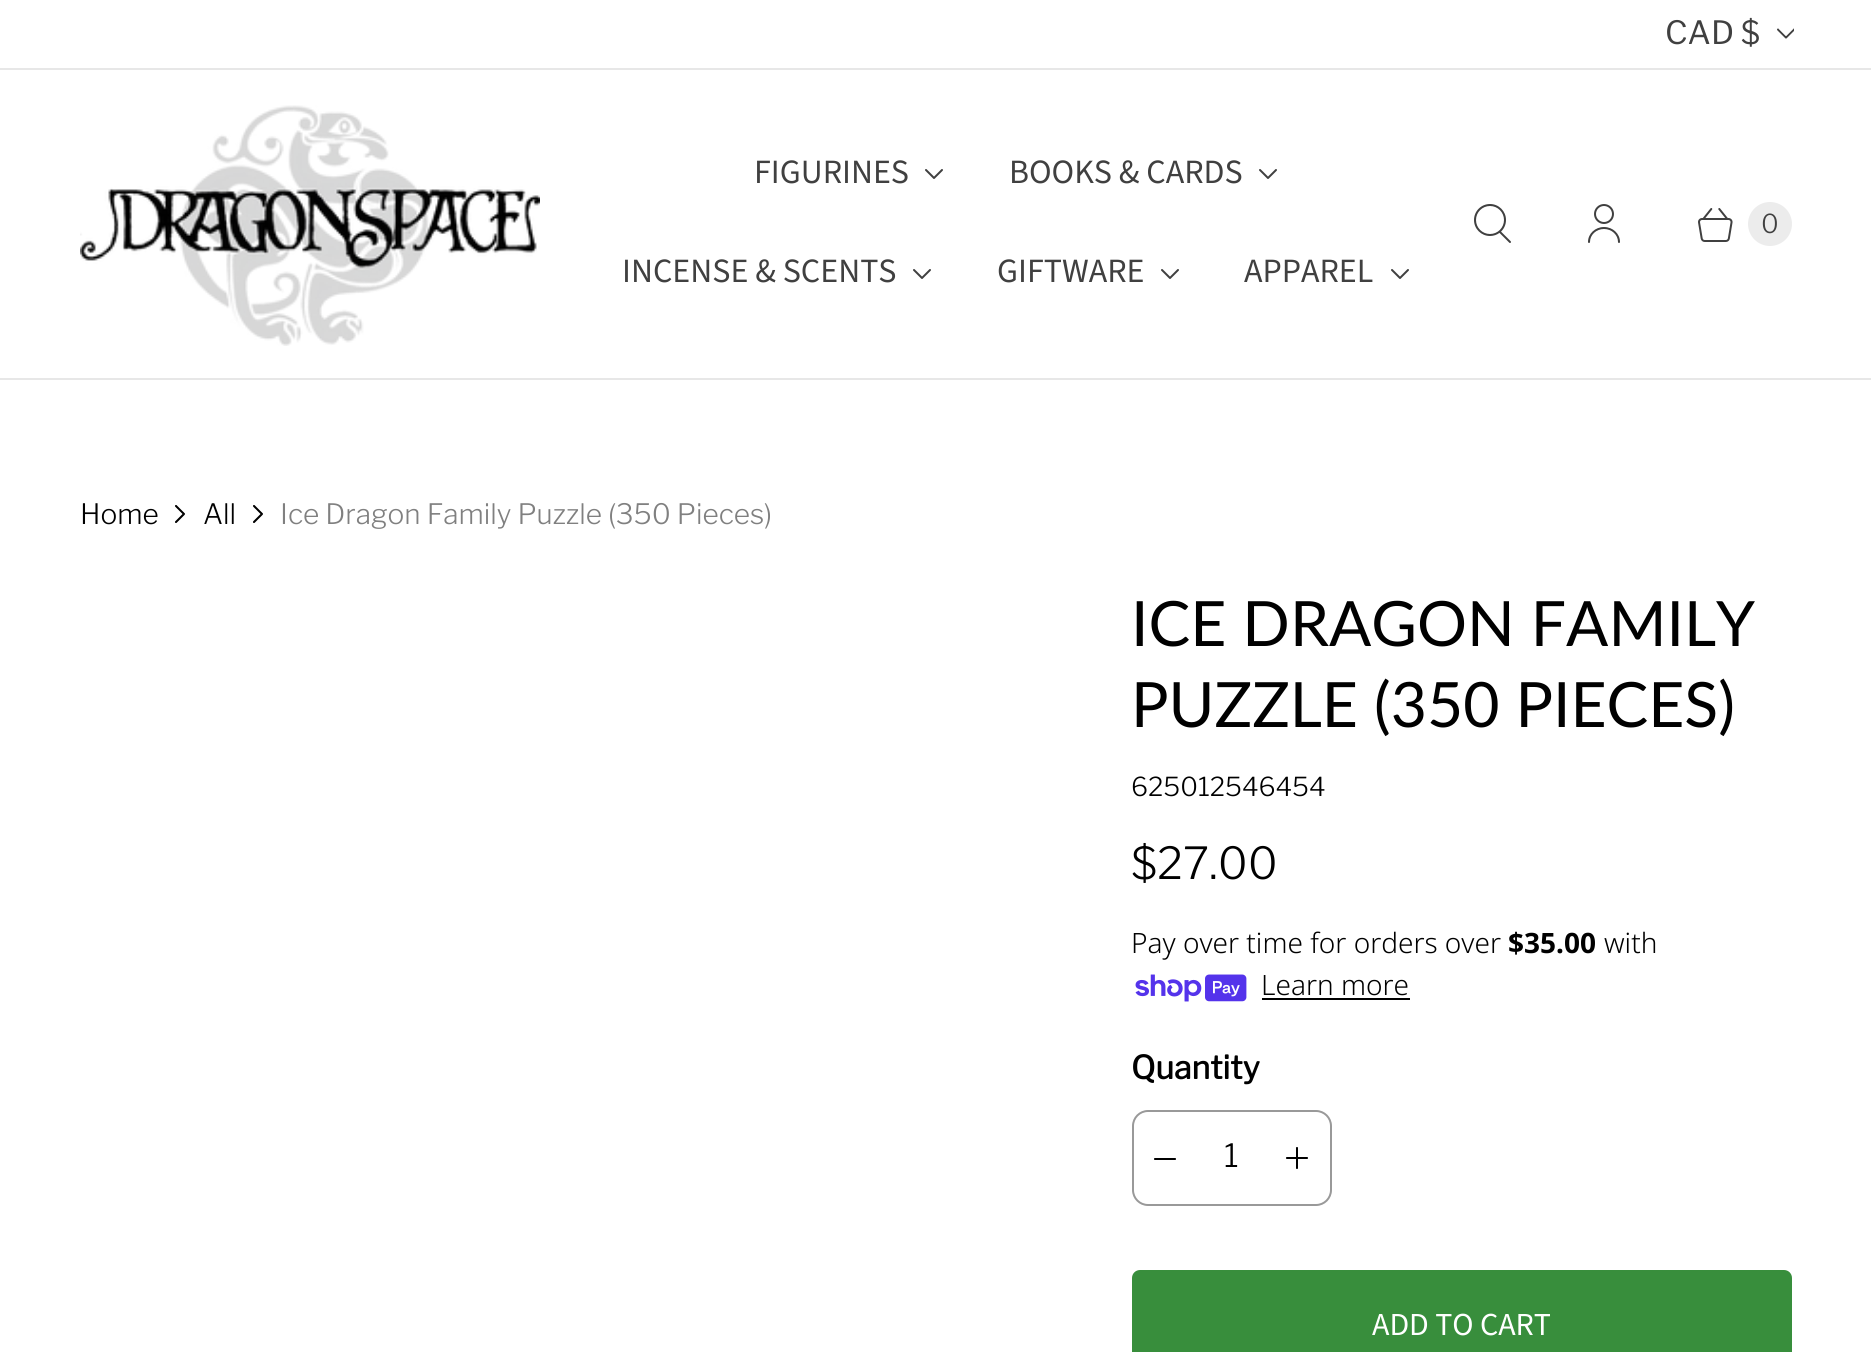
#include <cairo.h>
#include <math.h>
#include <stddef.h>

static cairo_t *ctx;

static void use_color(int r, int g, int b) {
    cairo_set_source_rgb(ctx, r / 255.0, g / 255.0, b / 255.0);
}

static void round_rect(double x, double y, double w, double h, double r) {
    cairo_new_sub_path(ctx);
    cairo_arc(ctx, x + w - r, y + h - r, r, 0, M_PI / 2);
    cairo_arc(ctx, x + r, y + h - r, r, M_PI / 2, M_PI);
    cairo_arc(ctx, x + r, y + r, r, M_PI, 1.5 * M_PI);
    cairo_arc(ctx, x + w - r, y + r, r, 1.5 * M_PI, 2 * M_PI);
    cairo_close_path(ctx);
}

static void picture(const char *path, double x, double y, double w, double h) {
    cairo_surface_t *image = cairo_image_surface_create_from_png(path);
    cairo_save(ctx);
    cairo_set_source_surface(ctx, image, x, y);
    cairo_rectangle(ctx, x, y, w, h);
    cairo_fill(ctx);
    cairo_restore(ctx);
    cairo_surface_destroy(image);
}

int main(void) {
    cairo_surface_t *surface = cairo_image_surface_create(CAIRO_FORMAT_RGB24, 1871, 1352);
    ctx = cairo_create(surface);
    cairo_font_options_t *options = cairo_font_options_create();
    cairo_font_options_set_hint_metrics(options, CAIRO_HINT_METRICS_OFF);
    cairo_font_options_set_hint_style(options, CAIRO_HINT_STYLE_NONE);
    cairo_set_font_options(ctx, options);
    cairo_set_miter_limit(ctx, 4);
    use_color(255, 255, 255);
    cairo_paint(ctx);
    use_color(231, 231, 231);
    cairo_rectangle(ctx, 0, 68, 1871, 2);
    cairo_fill(ctx);
    cairo_select_font_face(ctx, "Libre Franklin", CAIRO_FONT_SLANT_NORMAL, CAIRO_FONT_WEIGHT_NORMAL);
    cairo_set_font_size(ctx, 32);
    use_color(64, 64, 64);
    cairo_move_to(ctx, 1665, 44);
    cairo_show_text(ctx, "CAD $");
    picture("img1.png", 1777, 28, 17, 11);
    use_color(231, 231, 231);
    cairo_rectangle(ctx, 0, 378, 1871, 2);
    cairo_fill(ctx);
    picture("img2.png", 80, 105, 460, 241);
    cairo_select_font_face(ctx, "Source Sans Pro", CAIRO_FONT_SLANT_NORMAL, CAIRO_FONT_WEIGHT_NORMAL);
    cairo_set_font_size(ctx, 34);
    use_color(64, 64, 64);
    cairo_move_to(ctx, 754, 183);
    cairo_show_text(ctx, "FIGURINES");
    picture("img3.png", 925, 169, 18, 10);
    cairo_move_to(ctx, 1009, 183);
    cairo_show_text(ctx, "BOOKS & CARDS");
    picture("img3.png", 1259, 169, 18, 10);
    cairo_move_to(ctx, 622, 282);
    cairo_show_text(ctx, "INCENSE & SCENTS");
    picture("img3.png", 913, 269, 18, 10);
    cairo_move_to(ctx, 997, 282);
    cairo_show_text(ctx, "GIFTWARE");
    picture("img3.png", 1161, 269, 18, 10);
    cairo_move_to(ctx, 1244, 282);
    cairo_show_text(ctx, "APPAREL");
    picture("img3.png", 1391, 269, 18, 10);
    picture("img4.png", 1474, 204, 37, 39);
    picture("img5.png", 1588, 204, 32, 39);
    picture("img6.png", 1698, 208, 35, 34);
    use_color(236, 236, 236);
    cairo_arc(ctx, 1770, 224, 22, 0, 2 * M_PI);
    cairo_fill(ctx);
    cairo_select_font_face(ctx, "Libre Franklin Light", CAIRO_FONT_SLANT_NORMAL, CAIRO_FONT_WEIGHT_NORMAL);
    cairo_set_font_size(ctx, 26);
    use_color(64, 64, 64);
    cairo_move_to(ctx, 1761, 233);
    cairo_show_text(ctx, "0");
    cairo_set_font_size(ctx, 28);
    use_color(0, 0, 0);
    cairo_move_to(ctx, 80, 524);
    cairo_show_text(ctx, "Home");
    picture("img7.png", 175, 505, 10, 18);
    cairo_move_to(ctx, 203, 524);
    cairo_show_text(ctx, "All");
    picture("img8.png", 253, 505, 10, 18);
    use_color(128, 128, 128);
    cairo_move_to(ctx, 280, 524);
    cairo_show_text(ctx, "Ice Dragon Family Puzzle (350 Pieces)");
    cairo_select_font_face(ctx, "Lato", CAIRO_FONT_SLANT_NORMAL, CAIRO_FONT_WEIGHT_NORMAL);
    cairo_set_font_size(ctx, 62.5);
    use_color(0, 0, 0);
    cairo_move_to(ctx, 1131, 646);
    cairo_show_text(ctx, "ICE DRAGON FAMILY");
    cairo_move_to(ctx, 1131, 727);
    cairo_show_text(ctx, "PUZZLE (350 PIECES)");
    cairo_select_font_face(ctx, "Libre Franklin Light", CAIRO_FONT_SLANT_NORMAL, CAIRO_FONT_WEIGHT_NORMAL);
    cairo_set_font_size(ctx, 26);
    cairo_move_to(ctx, 1131, 796);
    cairo_show_text(ctx, "625012546454");
    cairo_set_font_size(ctx, 44);
    cairo_move_to(ctx, 1131, 879);
    cairo_show_text(ctx, "$27.00");
    cairo_select_font_face(ctx, "Noto Sans Light", CAIRO_FONT_SLANT_NORMAL, CAIRO_FONT_WEIGHT_NORMAL);
    cairo_set_font_size(ctx, 28);
    cairo_move_to(ctx, 1131, 953);
    cairo_show_text(ctx, "Pay over time for orders over");
    cairo_select_font_face(ctx, "Noto Sans", CAIRO_FONT_SLANT_NORMAL, CAIRO_FONT_WEIGHT_BOLD);
    cairo_move_to(ctx, 1508, 953);
    cairo_show_text(ctx, "$35.00");
    cairo_select_font_face(ctx, "Noto Sans Light", CAIRO_FONT_SLANT_NORMAL, CAIRO_FONT_WEIGHT_NORMAL);
    cairo_move_to(ctx, 1604, 953);
    cairo_show_text(ctx, "with");
    picture("img9.png", 1135, 974, 112, 28);
    cairo_move_to(ctx, 1261, 995);
    cairo_show_text(ctx, "Learn more");
    cairo_rectangle(ctx, 1262, 998, 148, 2);
    cairo_fill(ctx);
    cairo_select_font_face(ctx, "Libre Franklin", CAIRO_FONT_SLANT_NORMAL, CAIRO_FONT_WEIGHT_BOLD);
    cairo_set_font_size(ctx, 32);
    cairo_move_to(ctx, 1131, 1079);
    cairo_show_text(ctx, "Quantity");
    round_rect(1133, 1111, 198, 94, 15);
    use_color(153, 153, 153);
    cairo_stroke(ctx);
    picture("img10.png", 1154, 1158, 22, 2);
    cairo_select_font_face(ctx, "Libre Franklin Light", CAIRO_FONT_SLANT_NORMAL, CAIRO_FONT_WEIGHT_NORMAL);
    use_color(0, 0, 0);
    cairo_move_to(ctx, 1224, 1167);
    cairo_show_text(ctx, "1");
    picture("img11.png", 1286, 1147, 22, 22);
    use_color(56, 142, 60);
    round_rect(1133, 1271, 658, 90, 7);
    cairo_fill_preserve(ctx);
    cairo_stroke(ctx);
    cairo_select_font_face(ctx, "Source Sans Pro", CAIRO_FONT_SLANT_NORMAL, CAIRO_FONT_WEIGHT_NORMAL);
    use_color(255, 255, 255);
    cairo_move_to(ctx, 1372, 1335);
    cairo_show_text(ctx, "ADD TO CART");
    cairo_surface_write_to_png(surface, "result.png");
    cairo_font_options_destroy(options);
    cairo_destroy(ctx);
    cairo_surface_destroy(surface);
    return 0;
}
